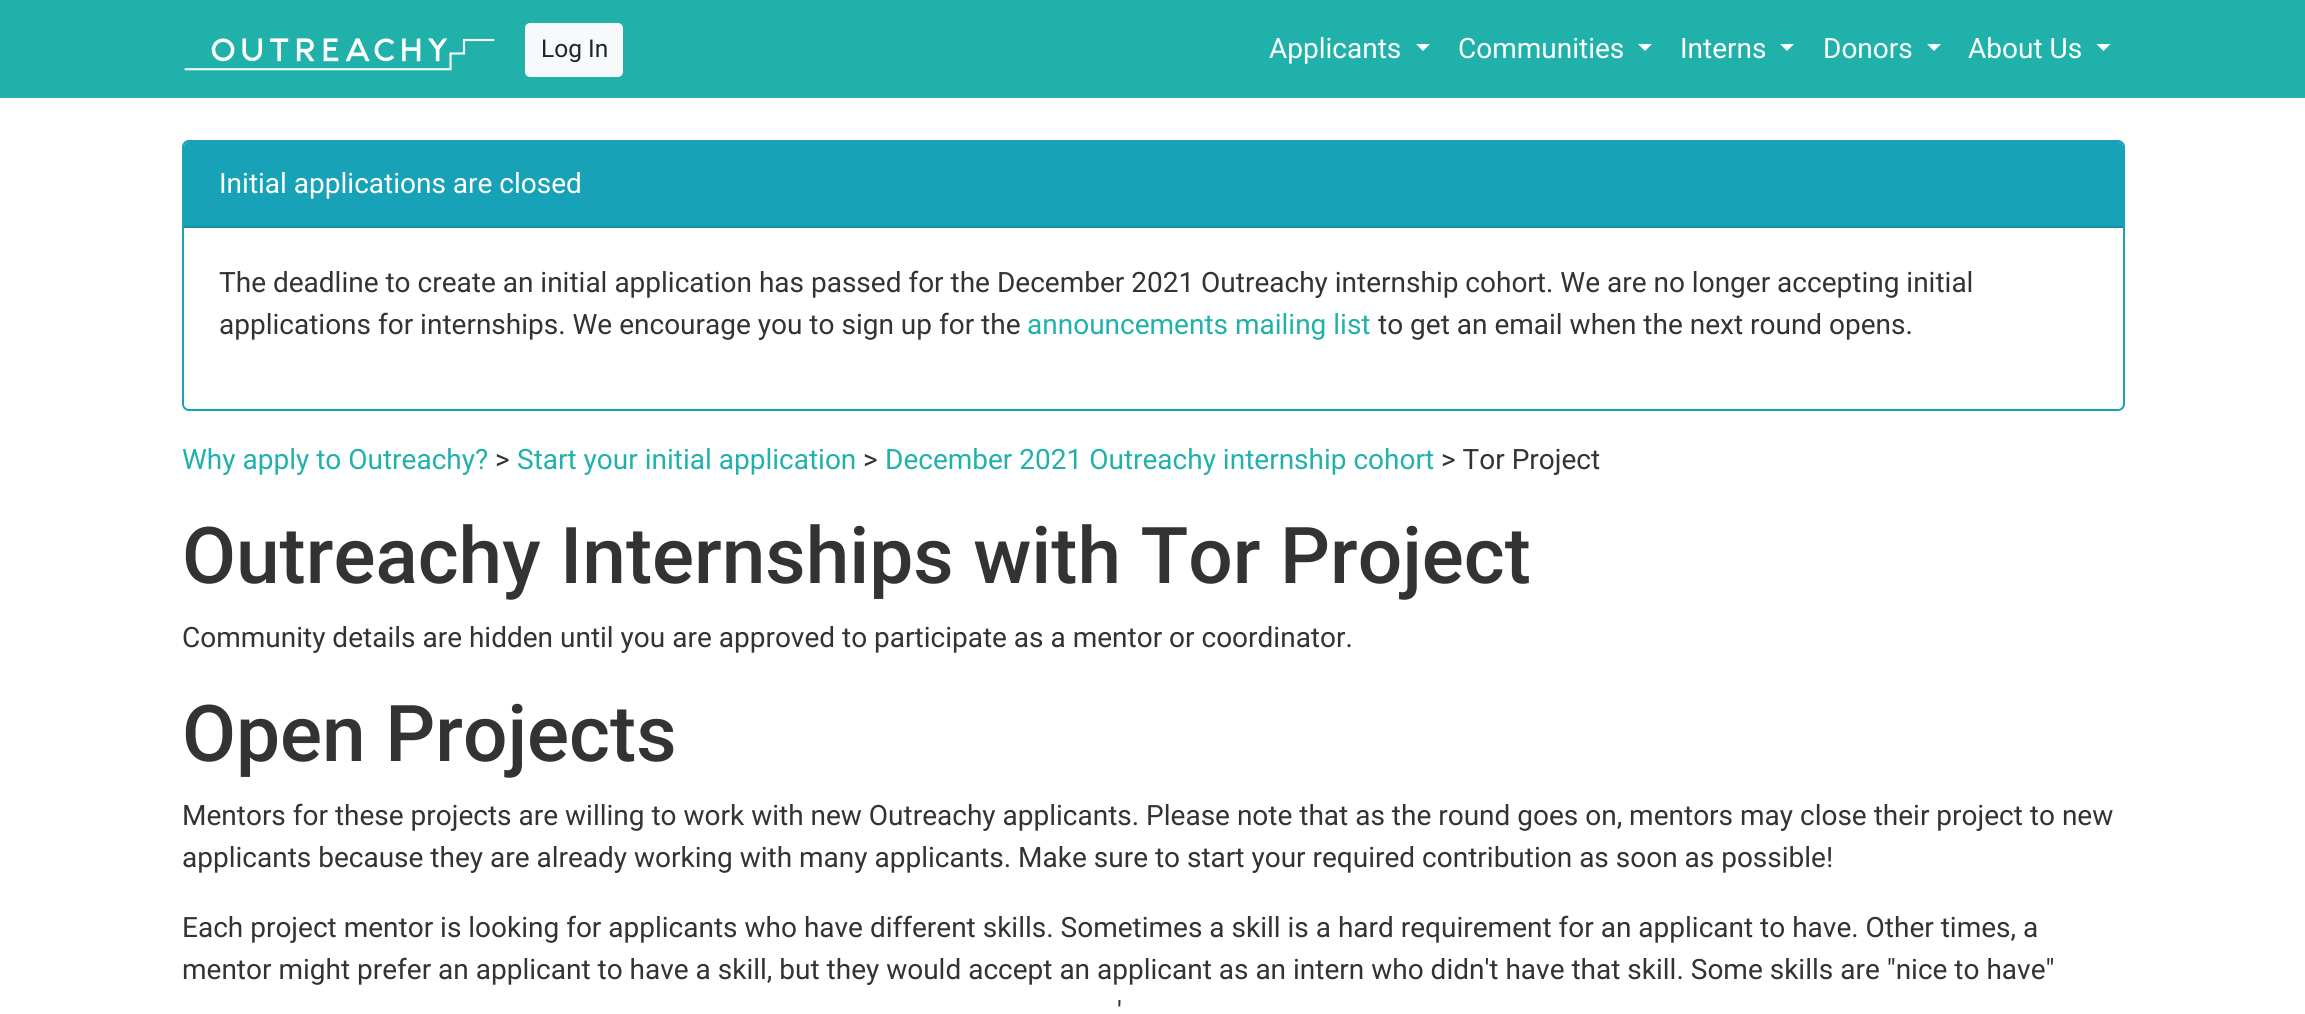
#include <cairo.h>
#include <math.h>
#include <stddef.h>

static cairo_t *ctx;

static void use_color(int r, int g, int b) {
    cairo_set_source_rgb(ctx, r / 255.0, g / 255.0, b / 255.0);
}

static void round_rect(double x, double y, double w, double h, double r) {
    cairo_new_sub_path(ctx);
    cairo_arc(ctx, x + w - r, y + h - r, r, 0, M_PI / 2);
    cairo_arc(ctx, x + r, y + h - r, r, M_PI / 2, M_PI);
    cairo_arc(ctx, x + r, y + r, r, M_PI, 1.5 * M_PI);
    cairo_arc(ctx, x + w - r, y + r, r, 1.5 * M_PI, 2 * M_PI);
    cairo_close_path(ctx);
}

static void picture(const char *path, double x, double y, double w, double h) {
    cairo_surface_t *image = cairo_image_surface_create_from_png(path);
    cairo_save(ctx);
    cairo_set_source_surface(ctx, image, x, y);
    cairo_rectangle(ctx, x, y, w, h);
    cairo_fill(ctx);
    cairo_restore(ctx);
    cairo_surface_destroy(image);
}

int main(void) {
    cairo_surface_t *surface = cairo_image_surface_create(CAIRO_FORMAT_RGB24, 2305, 1014);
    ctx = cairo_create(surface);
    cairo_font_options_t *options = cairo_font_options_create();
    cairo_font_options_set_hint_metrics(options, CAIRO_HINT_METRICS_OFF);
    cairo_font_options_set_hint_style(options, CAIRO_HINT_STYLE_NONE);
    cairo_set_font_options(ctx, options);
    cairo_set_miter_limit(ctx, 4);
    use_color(255, 255, 255);
    cairo_paint(ctx);
    use_color(32, 178, 170);
    cairo_rectangle(ctx, 0, 0, 2305, 98);
    cairo_fill(ctx);
    picture("img1.png", 184, 38, 311, 33);
    use_color(248, 249, 250);
    round_rect(526, 24, 96, 52, 4);
    cairo_fill_preserve(ctx);
    cairo_stroke(ctx);
    cairo_select_font_face(ctx, "Roboto", CAIRO_FONT_SLANT_NORMAL, CAIRO_FONT_WEIGHT_NORMAL);
    cairo_set_font_size(ctx, 24.5);
    use_color(33, 37, 41);
    cairo_move_to(ctx, 541, 57);
    cairo_show_text(ctx, "Log In");
    cairo_set_font_size(ctx, 28);
    use_color(255, 255, 255);
    cairo_move_to(ctx, 1269, 58);
    cairo_show_text(ctx, "Applicants");
    cairo_new_path(ctx);
    cairo_move_to(ctx, 1416, 44);
    cairo_line_to(ctx, 1430, 44);
    cairo_line_to(ctx, 1423, 51);
    cairo_close_path(ctx);
    cairo_fill(ctx);
    cairo_move_to(ctx, 1458, 58);
    cairo_show_text(ctx, "Communities");
    cairo_new_path(ctx);
    cairo_move_to(ctx, 1638, 44);
    cairo_line_to(ctx, 1652, 44);
    cairo_line_to(ctx, 1645, 51);
    cairo_close_path(ctx);
    cairo_fill(ctx);
    cairo_move_to(ctx, 1680, 58);
    cairo_show_text(ctx, "Interns");
    cairo_new_path(ctx);
    cairo_move_to(ctx, 1780, 44);
    cairo_line_to(ctx, 1794, 44);
    cairo_line_to(ctx, 1787, 51);
    cairo_close_path(ctx);
    cairo_fill(ctx);
    cairo_move_to(ctx, 1823, 58);
    cairo_show_text(ctx, "Donors");
    cairo_new_path(ctx);
    cairo_move_to(ctx, 1927, 44);
    cairo_line_to(ctx, 1941, 44);
    cairo_line_to(ctx, 1934, 51);
    cairo_close_path(ctx);
    cairo_fill(ctx);
    cairo_move_to(ctx, 1968, 58);
    cairo_show_text(ctx, "About Us");
    cairo_new_path(ctx);
    cairo_move_to(ctx, 2096.5, 44);
    cairo_line_to(ctx, 2110.5, 44);
    cairo_line_to(ctx, 2103.5, 51);
    cairo_close_path(ctx);
    cairo_fill(ctx);
    round_rect(183, 141, 1941, 269, 6);
    use_color(23, 162, 184);
    cairo_stroke(ctx);
    cairo_new_path(ctx);
    cairo_move_to(ctx, 189, 142);
    cairo_line_to(ctx, 2118, 142);
    cairo_curve_to(ctx, 2121, 142, 2123, 144, 2123, 147);
    cairo_line_to(ctx, 2123, 228);
    cairo_line_to(ctx, 184, 228);
    cairo_line_to(ctx, 184, 147);
    cairo_curve_to(ctx, 184, 144, 186, 142, 189, 142);
    cairo_close_path(ctx);
    cairo_fill(ctx);
    use_color(20, 142, 161);
    cairo_rectangle(ctx, 184, 226, 1939, 2);
    cairo_fill(ctx);
    use_color(255, 255, 255);
    cairo_move_to(ctx, 219, 193);
    cairo_show_text(ctx, "Initial applications are closed");
    use_color(51, 51, 51);
    cairo_move_to(ctx, 219, 292);
    cairo_show_text(ctx, "The deadline to create an initial application has passed for the December 2021 Outreachy internship cohort. We are no longer accepting initial");
    cairo_move_to(ctx, 219, 334);
    cairo_show_text(ctx, "applications for internships. We encourage you to sign up for the");
    use_color(32, 178, 170);
    cairo_move_to(ctx, 1027, 334);
    cairo_show_text(ctx, "announcements mailing list");
    use_color(51, 51, 51);
    cairo_move_to(ctx, 1378, 334);
    cairo_show_text(ctx, "to get an email when the next round opens.");
    use_color(32, 178, 170);
    cairo_move_to(ctx, 182, 469);
    cairo_show_text(ctx, "Why apply to Outreachy?");
    use_color(51, 51, 51);
    cairo_move_to(ctx, 495, 469);
    cairo_show_text(ctx, ">");
    use_color(32, 178, 170);
    cairo_move_to(ctx, 517, 469);
    cairo_show_text(ctx, "Start your initial application");
    use_color(51, 51, 51);
    cairo_move_to(ctx, 863, 469);
    cairo_show_text(ctx, ">");
    use_color(32, 178, 170);
    cairo_move_to(ctx, 885, 469);
    cairo_show_text(ctx, "December 2021 Outreachy internship cohort");
    use_color(51, 51, 51);
    cairo_move_to(ctx, 1441, 469);
    cairo_show_text(ctx, "> Tor Project");
    cairo_select_font_face(ctx, "Roboto Medium", CAIRO_FONT_SLANT_NORMAL, CAIRO_FONT_WEIGHT_NORMAL);
    cairo_set_font_size(ctx, 78.4);
    cairo_move_to(ctx, 182, 583);
    cairo_show_text(ctx, "Outreachy Internships with Tor Project");
    cairo_select_font_face(ctx, "Roboto", CAIRO_FONT_SLANT_NORMAL, CAIRO_FONT_WEIGHT_NORMAL);
    cairo_set_font_size(ctx, 28);
    cairo_move_to(ctx, 182, 647);
    cairo_show_text(ctx, "Community details are hidden until you are approved to participate as a mentor or coordinator.");
    cairo_select_font_face(ctx, "Roboto Medium", CAIRO_FONT_SLANT_NORMAL, CAIRO_FONT_WEIGHT_NORMAL);
    cairo_set_font_size(ctx, 78.4);
    cairo_move_to(ctx, 182, 761);
    cairo_show_text(ctx, "Open Projects");
    cairo_select_font_face(ctx, "Roboto", CAIRO_FONT_SLANT_NORMAL, CAIRO_FONT_WEIGHT_NORMAL);
    cairo_set_font_size(ctx, 28);
    cairo_move_to(ctx, 182, 825);
    cairo_show_text(ctx, "Mentors for these projects are willing to work with new Outreachy applicants. Please note that as the round goes on, mentors may close their project to new");
    cairo_move_to(ctx, 182, 867);
    cairo_show_text(ctx, "applicants because they are already working with many applicants. Make sure to start your required contribution as soon as possible!");
    cairo_move_to(ctx, 182, 937);
    cairo_show_text(ctx, "Each project mentor is looking for applicants who have different skills. Sometimes a skill is a hard requirement for an applicant to have. Other times, a");
    cairo_move_to(ctx, 182, 979);
    cairo_show_text(ctx, "mentor might prefer an applicant to have a skill, but they would accept an applicant as an intern who didn't have that skill. Some skills are \"nice to have\"");
    cairo_move_to(ctx, 1117, 1021);
    cairo_show_text(ctx, "'");
    cairo_surface_write_to_png(surface, "result.png");
    cairo_font_options_destroy(options);
    cairo_destroy(ctx);
    cairo_surface_destroy(surface);
    return 0;
}
